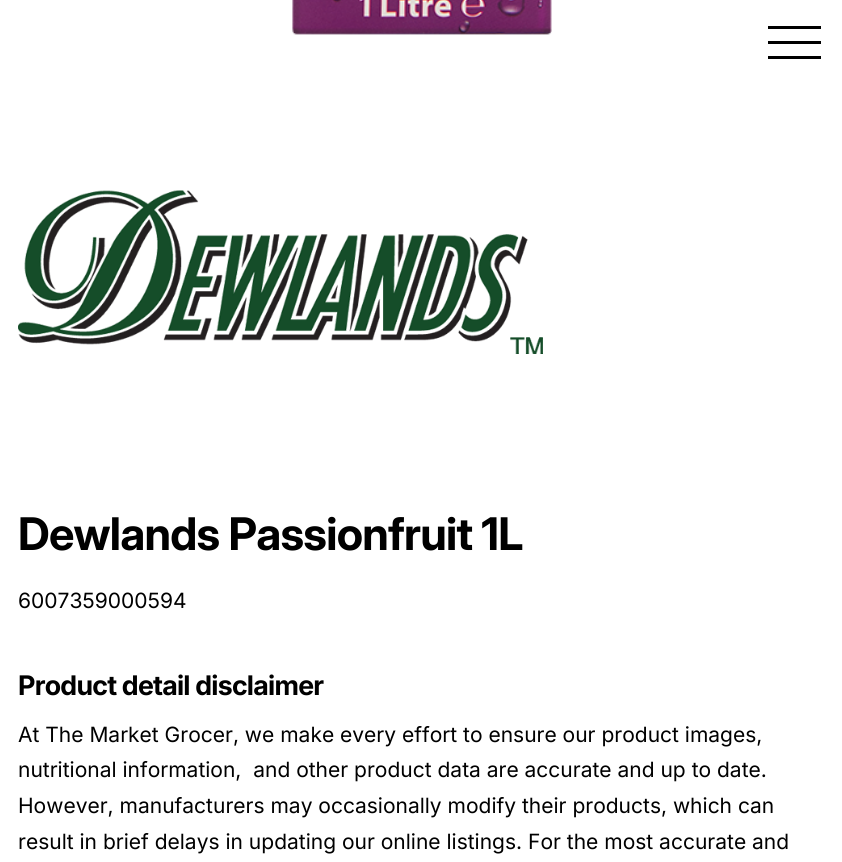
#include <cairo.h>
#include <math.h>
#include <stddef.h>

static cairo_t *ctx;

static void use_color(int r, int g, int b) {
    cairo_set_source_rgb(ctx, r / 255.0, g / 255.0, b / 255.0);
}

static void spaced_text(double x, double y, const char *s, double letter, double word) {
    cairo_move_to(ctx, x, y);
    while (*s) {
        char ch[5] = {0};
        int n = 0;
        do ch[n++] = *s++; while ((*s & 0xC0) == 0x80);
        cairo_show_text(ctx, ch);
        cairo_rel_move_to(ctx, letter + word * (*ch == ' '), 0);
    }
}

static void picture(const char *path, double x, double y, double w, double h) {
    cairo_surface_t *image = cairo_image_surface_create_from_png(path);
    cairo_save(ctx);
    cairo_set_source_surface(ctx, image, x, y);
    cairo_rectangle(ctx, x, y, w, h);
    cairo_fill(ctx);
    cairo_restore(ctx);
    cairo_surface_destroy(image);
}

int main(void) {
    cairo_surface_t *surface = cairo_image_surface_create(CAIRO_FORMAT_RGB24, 842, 862);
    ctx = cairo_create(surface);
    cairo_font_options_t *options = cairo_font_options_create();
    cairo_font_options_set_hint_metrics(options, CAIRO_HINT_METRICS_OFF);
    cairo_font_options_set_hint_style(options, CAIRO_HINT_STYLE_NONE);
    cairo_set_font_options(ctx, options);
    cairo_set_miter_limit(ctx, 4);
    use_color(255, 255, 255);
    cairo_paint(ctx);
    use_color(0, 0, 0);
    cairo_new_path(ctx);
    cairo_move_to(ctx, 768, 26);
    cairo_line_to(ctx, 768, 29);
    cairo_line_to(ctx, 821, 29);
    cairo_line_to(ctx, 821, 24);
    cairo_line_to(ctx, 820, 24);
    cairo_line_to(ctx, 820, 26);
    cairo_close_path(ctx);
    cairo_fill(ctx);
    use_color(255, 255, 255);
    cairo_rectangle(ctx, 820, 24, 1, 2);
    cairo_fill(ctx);
    use_color(0, 0, 0);
    cairo_new_path(ctx);
    cairo_move_to(ctx, 768, 40);
    cairo_line_to(ctx, 768, 44);
    cairo_line_to(ctx, 821, 44);
    cairo_line_to(ctx, 821, 39);
    cairo_line_to(ctx, 820, 39);
    cairo_line_to(ctx, 820, 40);
    cairo_close_path(ctx);
    cairo_fill(ctx);
    use_color(255, 255, 255);
    cairo_rectangle(ctx, 768, 39, 53, 2);
    cairo_fill(ctx);
    use_color(0, 0, 0);
    cairo_new_path(ctx);
    cairo_move_to(ctx, 768, 56);
    cairo_line_to(ctx, 768, 59);
    cairo_line_to(ctx, 821, 59);
    cairo_line_to(ctx, 821, 54);
    cairo_line_to(ctx, 820, 54);
    cairo_line_to(ctx, 820, 56);
    cairo_close_path(ctx);
    cairo_fill(ctx);
    use_color(255, 255, 255);
    cairo_rectangle(ctx, 820, 54, 1, 2);
    cairo_fill(ctx);
    picture("img1.png", 292, 0, 260, 35);
    picture("img2.png", 18, 190, 525, 164);
    cairo_select_font_face(ctx, "Inter", CAIRO_FONT_SLANT_NORMAL, CAIRO_FONT_WEIGHT_BOLD);
    cairo_set_font_size(ctx, 45);
    use_color(0, 0, 0);
    spaced_text(18, 550, "Dewlands Passionfruit 1L", -0.75, 0);
    cairo_select_font_face(ctx, "Inter", CAIRO_FONT_SLANT_NORMAL, CAIRO_FONT_WEIGHT_NORMAL);
    cairo_set_font_size(ctx, 21);
    cairo_move_to(ctx, 18, 608);
    cairo_show_text(ctx, "6007359000594");
    cairo_select_font_face(ctx, "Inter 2", CAIRO_FONT_SLANT_NORMAL, CAIRO_FONT_WEIGHT_BOLD);
    cairo_set_font_size(ctx, 27);
    spaced_text(18, 695, "Product detail disclaimer", -0.75, 0);
    cairo_select_font_face(ctx, "Inter", CAIRO_FONT_SLANT_NORMAL, CAIRO_FONT_WEIGHT_NORMAL);
    cairo_set_font_size(ctx, 21);
    cairo_move_to(ctx, 18, 742);
    cairo_show_text(ctx, "At The Market Grocer, we make every effort to ensure our product images,");
    cairo_move_to(ctx, 18, 777);
    cairo_show_text(ctx, "nutritional information,  and other product data are accurate and up to date.");
    cairo_move_to(ctx, 18, 813);
    cairo_show_text(ctx, "However, manufacturers may occasionally modify their products, which can");
    cairo_move_to(ctx, 18, 849);
    cairo_show_text(ctx, "result in brief delays in updating our online listings. For the most accurate and");
    cairo_surface_write_to_png(surface, "result.png");
    cairo_font_options_destroy(options);
    cairo_destroy(ctx);
    cairo_surface_destroy(surface);
    return 0;
}
